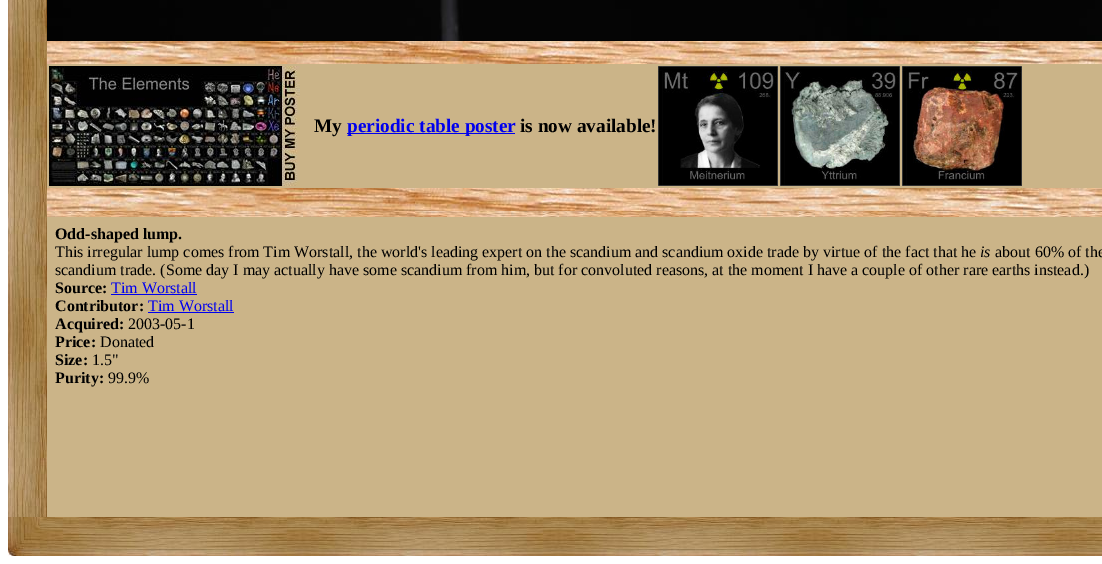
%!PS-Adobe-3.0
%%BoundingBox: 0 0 1102 564
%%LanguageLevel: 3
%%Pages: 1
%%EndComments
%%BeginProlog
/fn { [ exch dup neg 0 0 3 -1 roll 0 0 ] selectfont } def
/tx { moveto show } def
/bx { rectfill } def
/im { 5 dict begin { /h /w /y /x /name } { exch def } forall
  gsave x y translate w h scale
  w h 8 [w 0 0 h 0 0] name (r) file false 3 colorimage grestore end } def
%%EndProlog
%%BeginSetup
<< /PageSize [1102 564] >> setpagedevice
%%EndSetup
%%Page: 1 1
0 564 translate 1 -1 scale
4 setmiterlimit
1 setgray
0 0 1102 564 bx
(image0.raw) 8 0 39 517 im
0.796 0.706 0.533 setrgbcolor
47 64 1055 453 bx
(image1.raw) 47 0 800 41 im
(image2.raw) 847 0 255 41 im
(image3.raw) 47 41 1055 23 im
(image4.raw) 49 66 251 120 im
/LiberationSerif-Bold 19.25 fn
0 setgray
(My) 314 132 tx
0 0 0.933 setrgbcolor
347 133 168 1 bx
(periodic table poster) 347 132 tx
0 setgray
(is now available!) 520 132 tx
(image5.raw) 658 66 120 120 im
(image6.raw) 780 66 120 120 im
(image7.raw) 902 66 120 120 im
(image3.raw) 47 188 1055 23 im
(image8.raw) 47 211 1055 6 im
/LiberationSerif-Bold 16 fn
(Odd-shaped lump.) 55 239 tx
/LiberationSerif-Regular 16 fn
(This irregular lump comes from Tim Worstall, the world's leading expert on the scandium and scandium oxide trade by virtue of the fact that he) 55 257 tx
/LiberationSerif-Italic 16 fn
(is) 980 257 tx
/LiberationSerif-Regular 16 fn
(about 60% of the) 995 257 tx
(scandium trade. \(Some day I may actually have some scandium from him, but for convoluted reasons, at the moment I have a couple of other rare earths instead.\)) 55 275 tx
/LiberationSerif-Bold 16 fn
(Source:) 55 293 tx
/LiberationSerif-Regular 16 fn
0 0 0.933 setrgbcolor
(Tim Worstall) 111 293 tx
111 294 86 1 bx
/LiberationSerif-Bold 16 fn
0 setgray
(Contributor:) 55 311 tx
/LiberationSerif-Regular 16 fn
0 0 0.933 setrgbcolor
(Tim Worstall) 148 311 tx
148 312 86 1 bx
/LiberationSerif-Bold 16 fn
0 setgray
(Acquired:) 55 329 tx
/LiberationSerif-Regular 16 fn
(2003-05-1) 128 329 tx
/LiberationSerif-Bold 16 fn
(Price:) 55 347 tx
/LiberationSerif-Regular 16 fn
(Donated) 100 347 tx
/LiberationSerif-Bold 16 fn
(Size:) 55 365 tx
/LiberationSerif-Regular 16 fn
(1.5") 92 365 tx
/LiberationSerif-Bold 16 fn
(Purity:) 55 383 tx
/LiberationSerif-Regular 16 fn
(99.9%) 108 383 tx
(image9.raw) 8 517 39 39 im
(image10.raw) 47 517 1055 39 im
showpage
%%EOF
